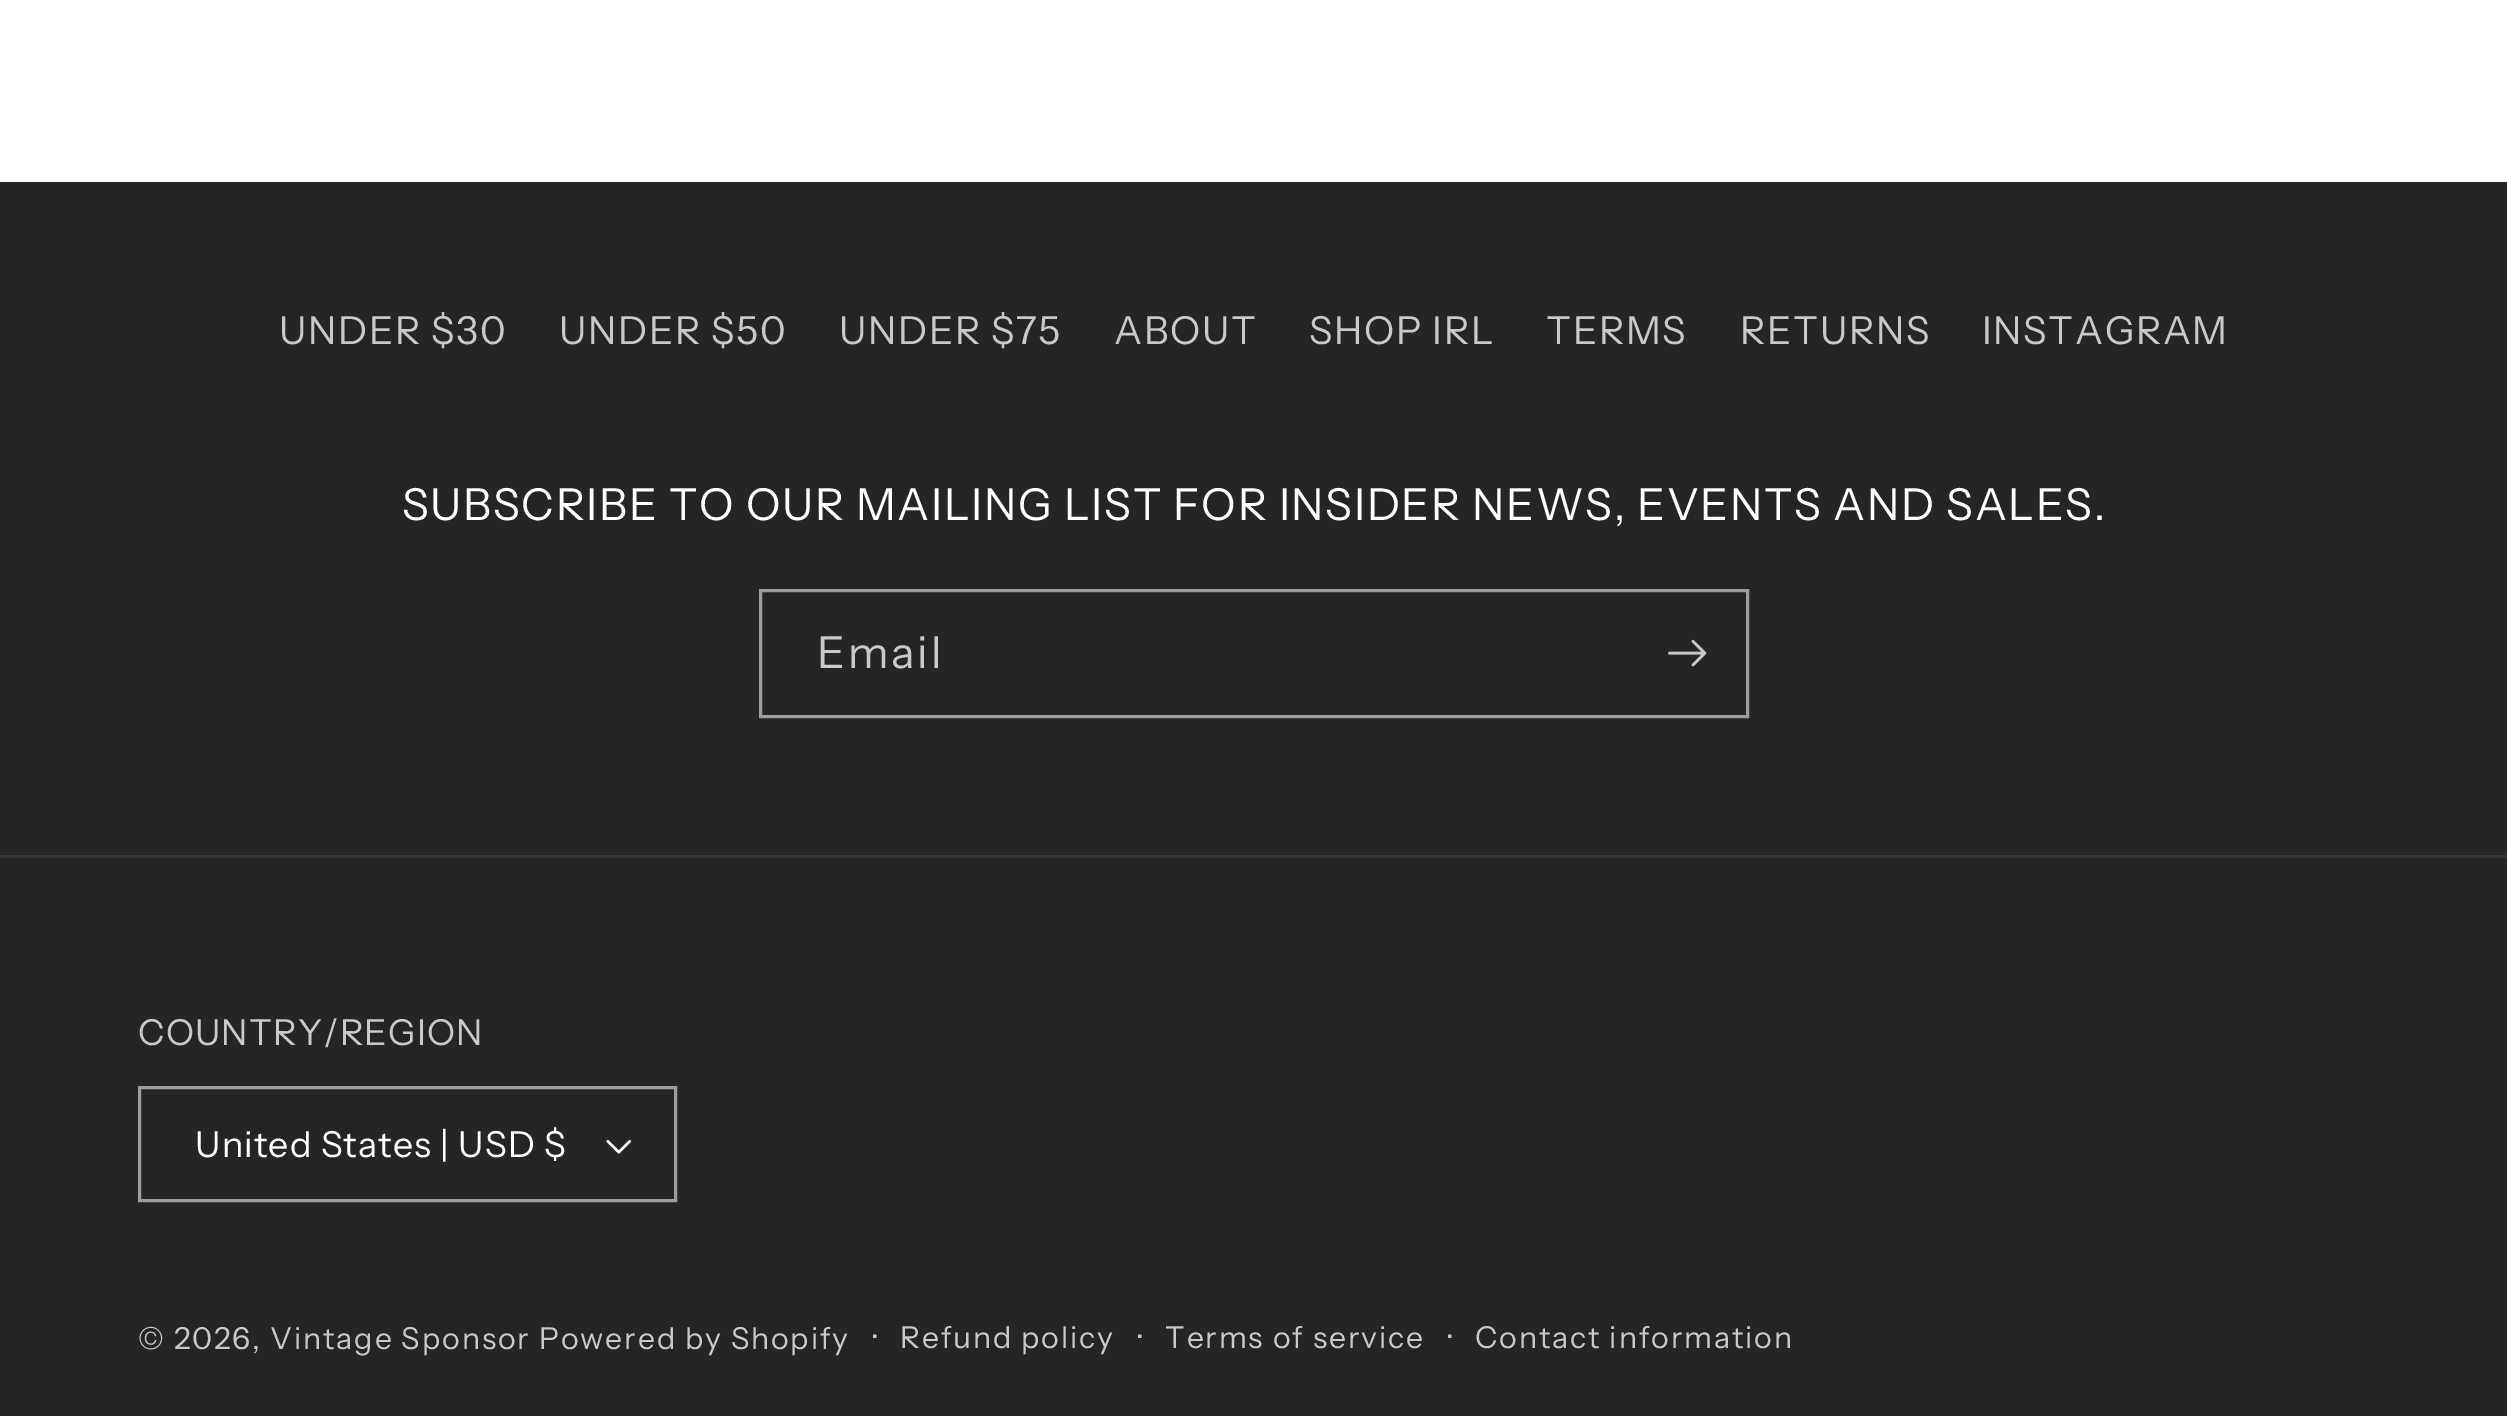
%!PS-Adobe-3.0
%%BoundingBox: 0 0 2507 1416
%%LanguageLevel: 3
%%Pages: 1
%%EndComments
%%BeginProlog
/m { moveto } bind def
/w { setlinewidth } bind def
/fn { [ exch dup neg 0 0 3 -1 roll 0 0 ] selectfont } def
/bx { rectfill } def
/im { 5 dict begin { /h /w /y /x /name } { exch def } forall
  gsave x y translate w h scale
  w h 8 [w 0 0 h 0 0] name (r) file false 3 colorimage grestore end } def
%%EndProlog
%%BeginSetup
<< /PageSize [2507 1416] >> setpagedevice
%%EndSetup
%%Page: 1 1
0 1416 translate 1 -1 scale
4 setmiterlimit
1 setgray
0 0 2507 1416 bx
0.145 setgray
0 182 2507 1234 bx
/InstrumentSans-Regular 38.5 fn
0.788 setgray
279 344 m 1.65 0 (UNDER $30) ashow
559 344 m 1.65 0 (UNDER $50) ashow
839 344 m 1.65 0 (UNDER $75) ashow
1114 344 m 1.65 0 (ABOUT) ashow
1309 344 m 1.65 0 (SHOP IRL) ashow
1546 344 m 1.65 0 (TERMS) ashow
1740 344 m 1.65 0 (RETURNS) ashow
1982 344 m 1.65 0 (INSTAGRAM) ashow
/InstrumentSans-Regular 44 fn
1 setgray
402 520 m 1.65 0 (SUBSCRIBE TO OUR MAILING LIST FOR INSIDER NEWS, EVENTS AND SALES.) ashow
0.616 setgray
3 w
760.5 590.5 987 126 rectstroke
0.788 setgray
817 668 m 2.75 0 (Email) ashow
(image0.raw) 1668 639 39 28 im
0.212 setgray
0 855 2507 3 bx
/InstrumentSans-Regular 35.75 fn
0.788 setgray
138 1045 m 1.1 0 (COUNTRY/REGION) ashow
(image1.raw) 606 1139 26 15 im
0.616 setgray
139.5 1087.5 536 113 rectstroke
1 setgray
195 1157 m 1.1 0 (United States | USD $) ashow
/InstrumentSans-Regular 30.25 fn
0.788 setgray
138 1349 m 1.9 0 (© 2026, Vintage Sponsor) ashow
539 1349 m 1.9 0 (Powered by Shopify) ashow
/InstrumentSans-Regular 33 fn
873 1349 m 1.9 0 (·) ashow
/InstrumentSans-Regular 30.25 fn
900 1348 m 1.9 0 (Refund policy) ashow
/InstrumentSans-Regular 33 fn
1138 1349 m 1.9 0 (·) ashow
/InstrumentSans-Regular 30.25 fn
1165 1348 m 1.9 0 (Terms of service) ashow
/InstrumentSans-Regular 33 fn
1448 1349 m 1.9 0 (·) ashow
/InstrumentSans-Regular 30.25 fn
1475 1348 m 1.9 0 (Contact information) ashow
showpage
%%EOF
